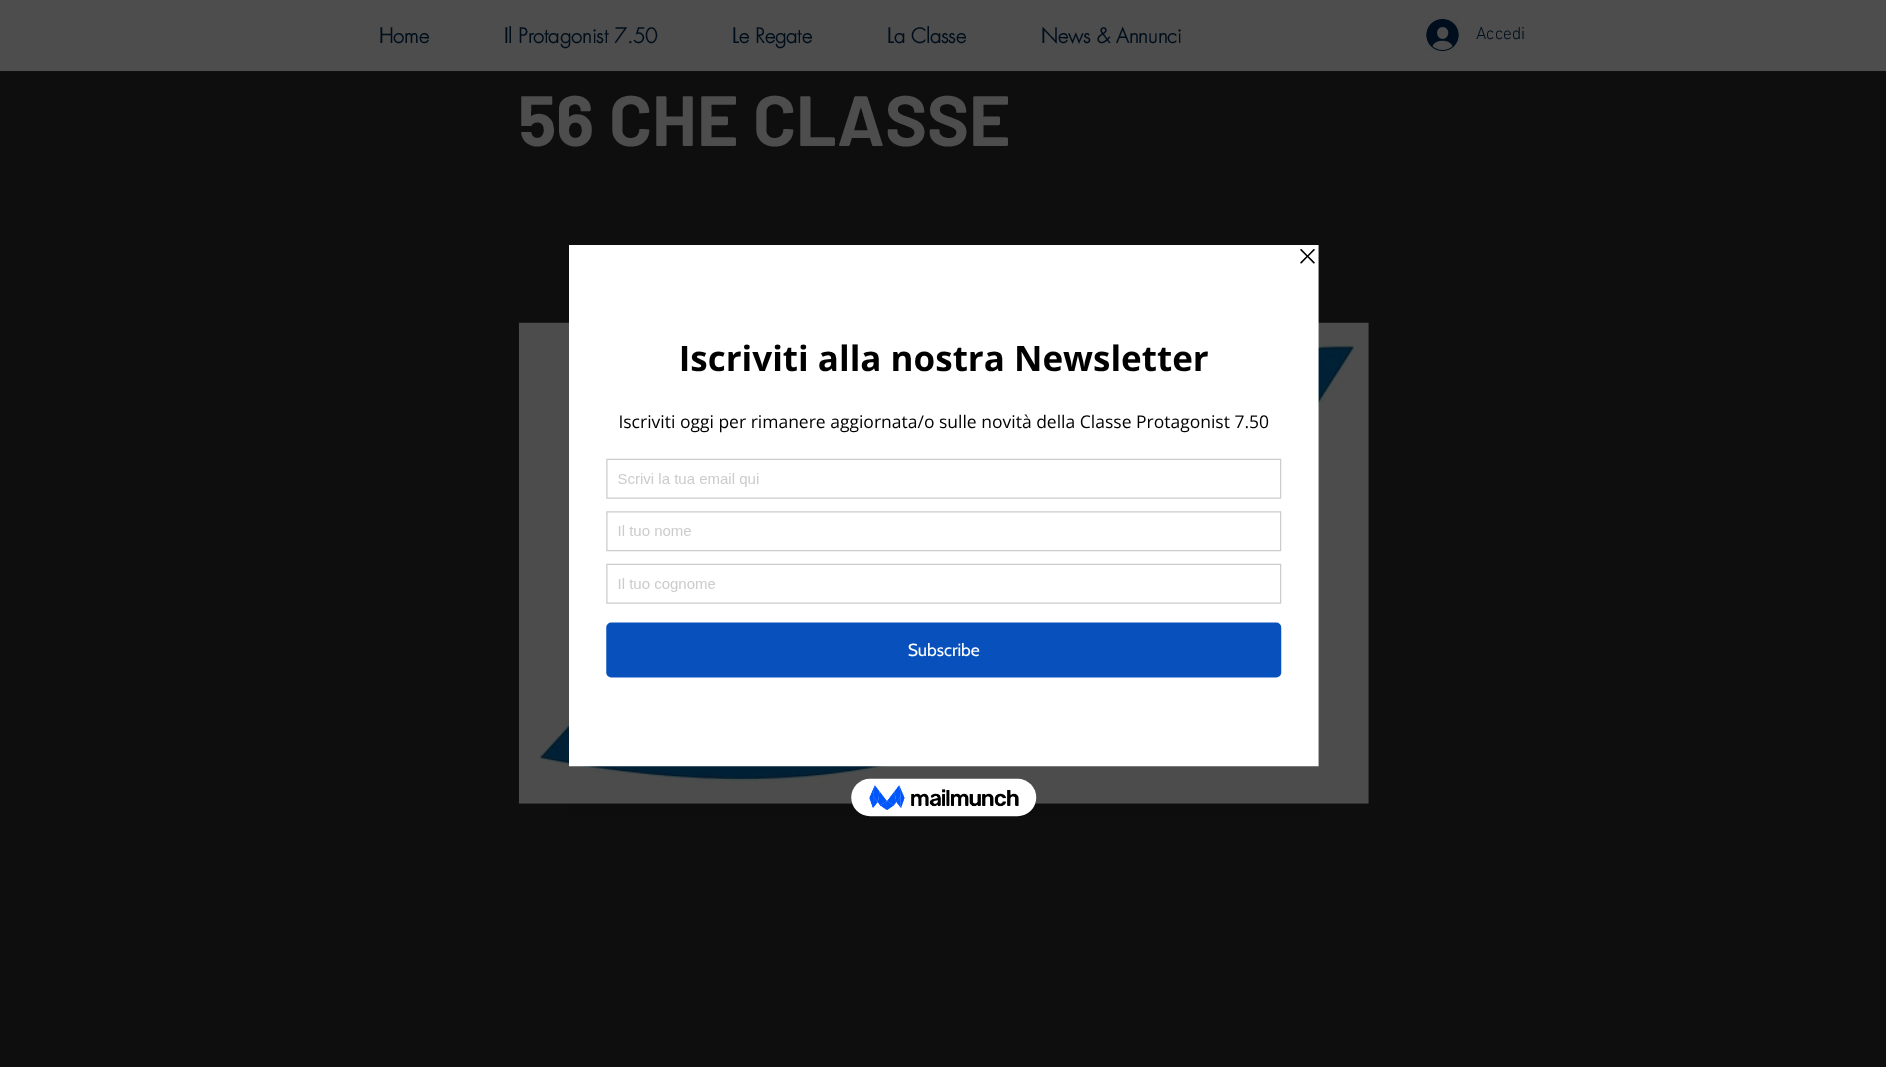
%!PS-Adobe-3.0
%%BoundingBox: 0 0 1886 1067
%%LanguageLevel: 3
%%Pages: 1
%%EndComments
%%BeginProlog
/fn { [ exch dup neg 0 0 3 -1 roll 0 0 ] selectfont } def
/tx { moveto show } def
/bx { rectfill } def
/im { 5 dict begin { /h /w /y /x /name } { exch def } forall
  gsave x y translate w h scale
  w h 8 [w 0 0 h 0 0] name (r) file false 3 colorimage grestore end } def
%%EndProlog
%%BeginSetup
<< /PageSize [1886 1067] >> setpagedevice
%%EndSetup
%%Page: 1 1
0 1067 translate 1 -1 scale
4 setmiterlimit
0.055 setgray
0 0 1886 1067 bx
0.302 setgray
0 0 1886 71 bx
0.067 setgray
0 71 1886 1 bx
/futura-Bold 20 fn
0 0.055 0.11 setrgbcolor
(Home) 379 43 tx
(Il Protagonist 7.50) 504 43 tx
(Le Regate) 732 43 tx
(La Classe) 887 43 tx
(News & Annunci) 1041 43 tx
(image0.raw) 1426 19 33 32 im
/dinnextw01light-Light 17.5 fn
(Accedi) 1476 39 tx
/Barlow-Bold 71.25 fn
0.302 setgray
(56 CHE CLASSE) 518 146 tx
(image1.raw) 518 322 851 482 im
(image2.raw) 569 245 750 572 im
showpage
%%EOF
